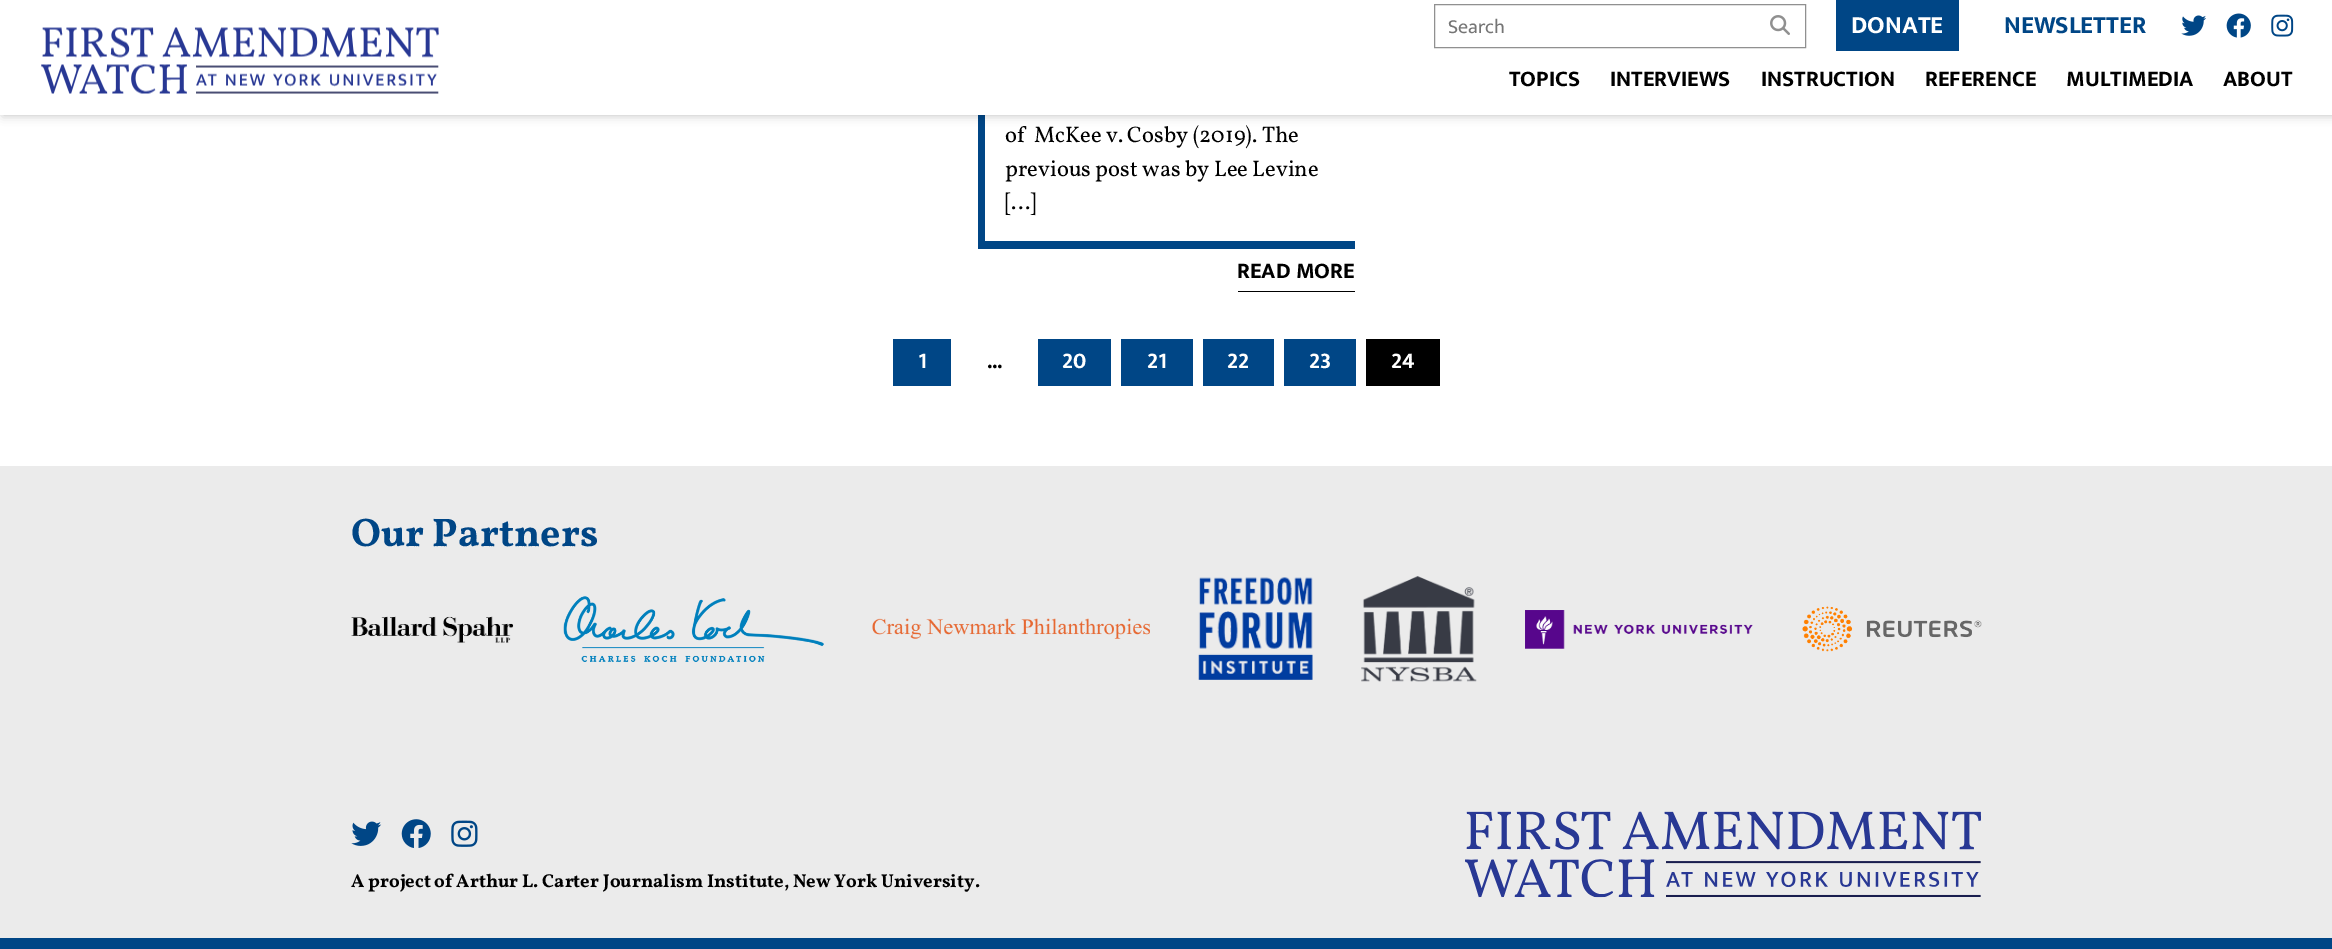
%!PS-Adobe-3.0
%%BoundingBox: 0 0 2332 949
%%LanguageLevel: 3
%%Pages: 1
%%EndComments
%%BeginProlog
/fn { [ exch dup neg 0 0 3 -1 roll 0 0 ] selectfont } def
/tx { moveto show } def
/bx { rectfill } def
/al { dup .setfillconstantalpha .setstrokeconstantalpha } def
/rr { 5 dict begin { /r /h /w /y /x } { exch def } forall
  x r add y moveto x w add y 2 copy h add r arct x w add y h add x 1 index r arct
  x y h add x y r arct x y 2 copy exch w add exch r arct closepath end } def
/sh { 12 dict begin { /a /b /q /h /w /y /x } { exch def } forall gsave /was 0 def
  9 -2 -9 { dup b mul 4 div /e exch def 1 sub .425 mul 2.718 exch exp 1 add a .99 .min exch div /now exch def
    1 1 now sub 1 was sub div sub al /was now def
    w h .min e 2 mul add 0 gt { x e sub y e sub w e 2 mul add h e 2 mul add
      q e add b .6 mul add w h .min 2 div e add .min 0 .max rr fill } if } for grestore end } def
/im { 5 dict begin { /h /w /y /x /name } { exch def } forall
  gsave x y translate w h scale
  w h 8 [w 0 0 h 0 0] name (r) file false 3 colorimage grestore end } def
%%EndProlog
%%BeginSetup
<< /PageSize [2332 949] /PageUsesTransparency true >> setpagedevice
%%EndSetup
%%Page: 1 1
0 .pushpdf14devicefilter
0 949 translate 1 -1 scale
4 setmiterlimit
1 setgray
0 0 2332 949 bx
0 0.275 0.525 setrgbcolor
978 241 377 8 bx
978 115 7 134 bx
0 setgray
3 0 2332 115 0 5 0.25 sh
1 setgray
0 0 2332 115 bx
(image0.raw) 41 27 398 67 im
0.565 setgray
1434.5 4.5 371 43 rectstroke
/Mukta-Regular 20 fn
0.459 setgray
(Search) 1448 33 tx
(image1.raw) 1770 15 20 20 im
0 0.275 0.525 setrgbcolor
1836 0 123 51 bx
/Mukta-Bold 25 fn
1 setgray
(DONATE) 1851 33 tx
0 0.275 0.525 setrgbcolor
(NEWSLETTER) 2004 33 tx
(image2.raw) 2181 15 25 21 im
(image3.raw) 2226 13 25 25 im
(image4.raw) 2271 14 23 23 im
/Mukta-Bold 22.5 fn
0 setgray
(TOPICS) 1509 86 tx
(INTERVIEWS) 1610 86 tx
(INSTRUCTION) 1761 86 tx
(REFERENCE) 1925 86 tx
(MULTIMEDIA) 2066 86 tx
(ABOUT) 2223 86 tx
/Vollkorn-Regular 22.5 fn
(of  McKee v. Cosby \(2019\). The) 1005 142 tx
(previous post was by Lee Levine) 1005 176 tx
([…]) 1005 209 tx
/Mukta-Bold 22.5 fn
(READ MORE) 1237 278 tx
1238 291 117 1 bx
0 0.275 0.525 setrgbcolor
893 339 58 47 bx
1 setgray
(1) 918 368 tx
0 setgray
(...) 987 368 tx
0 0.275 0.525 setrgbcolor
1038 339 73 47 bx
1 setgray
(20) 1062 368 tx
0 0.275 0.525 setrgbcolor
1121 339 72 47 bx
1 setgray
(21) 1147 368 tx
0 0.275 0.525 setrgbcolor
1203 339 71 47 bx
1 setgray
(22) 1227 368 tx
0 0.275 0.525 setrgbcolor
1284 339 72 47 bx
1 setgray
(23) 1309 368 tx
0 setgray
1366 339 74 47 bx
1 setgray
(24) 1391 368 tx
0.922 setgray
0 466 2332 472 bx
0 0.275 0.525 setrgbcolor
0 938 2332 11 bx
/Vollkorn-Bold 40 fn
(Our Partners) 351 546 tx
(image5.raw) 351 616 163 27 im
(image6.raw) 563 596 261 66 im
(image7.raw) 872 618 278 21 im
(image8.raw) 1198 577 115 103 im
(image9.raw) 1361 576 116 106 im
(image10.raw) 1525 610 228 39 im
(image11.raw) 1802 606 180 46 im
(image12.raw) 351 821 31 25 im
(image13.raw) 401 819 30 29 im
(image14.raw) 451 820 27 27 im
/Vollkorn-Bold 18.75 fn
0 setgray
(A project of Arthur L. Carter Journalism Institute, New York University.) 351 887 tx
(image15.raw) 1465 811 516 87 im
.poppdf14devicefilter showpage
%%EOF
